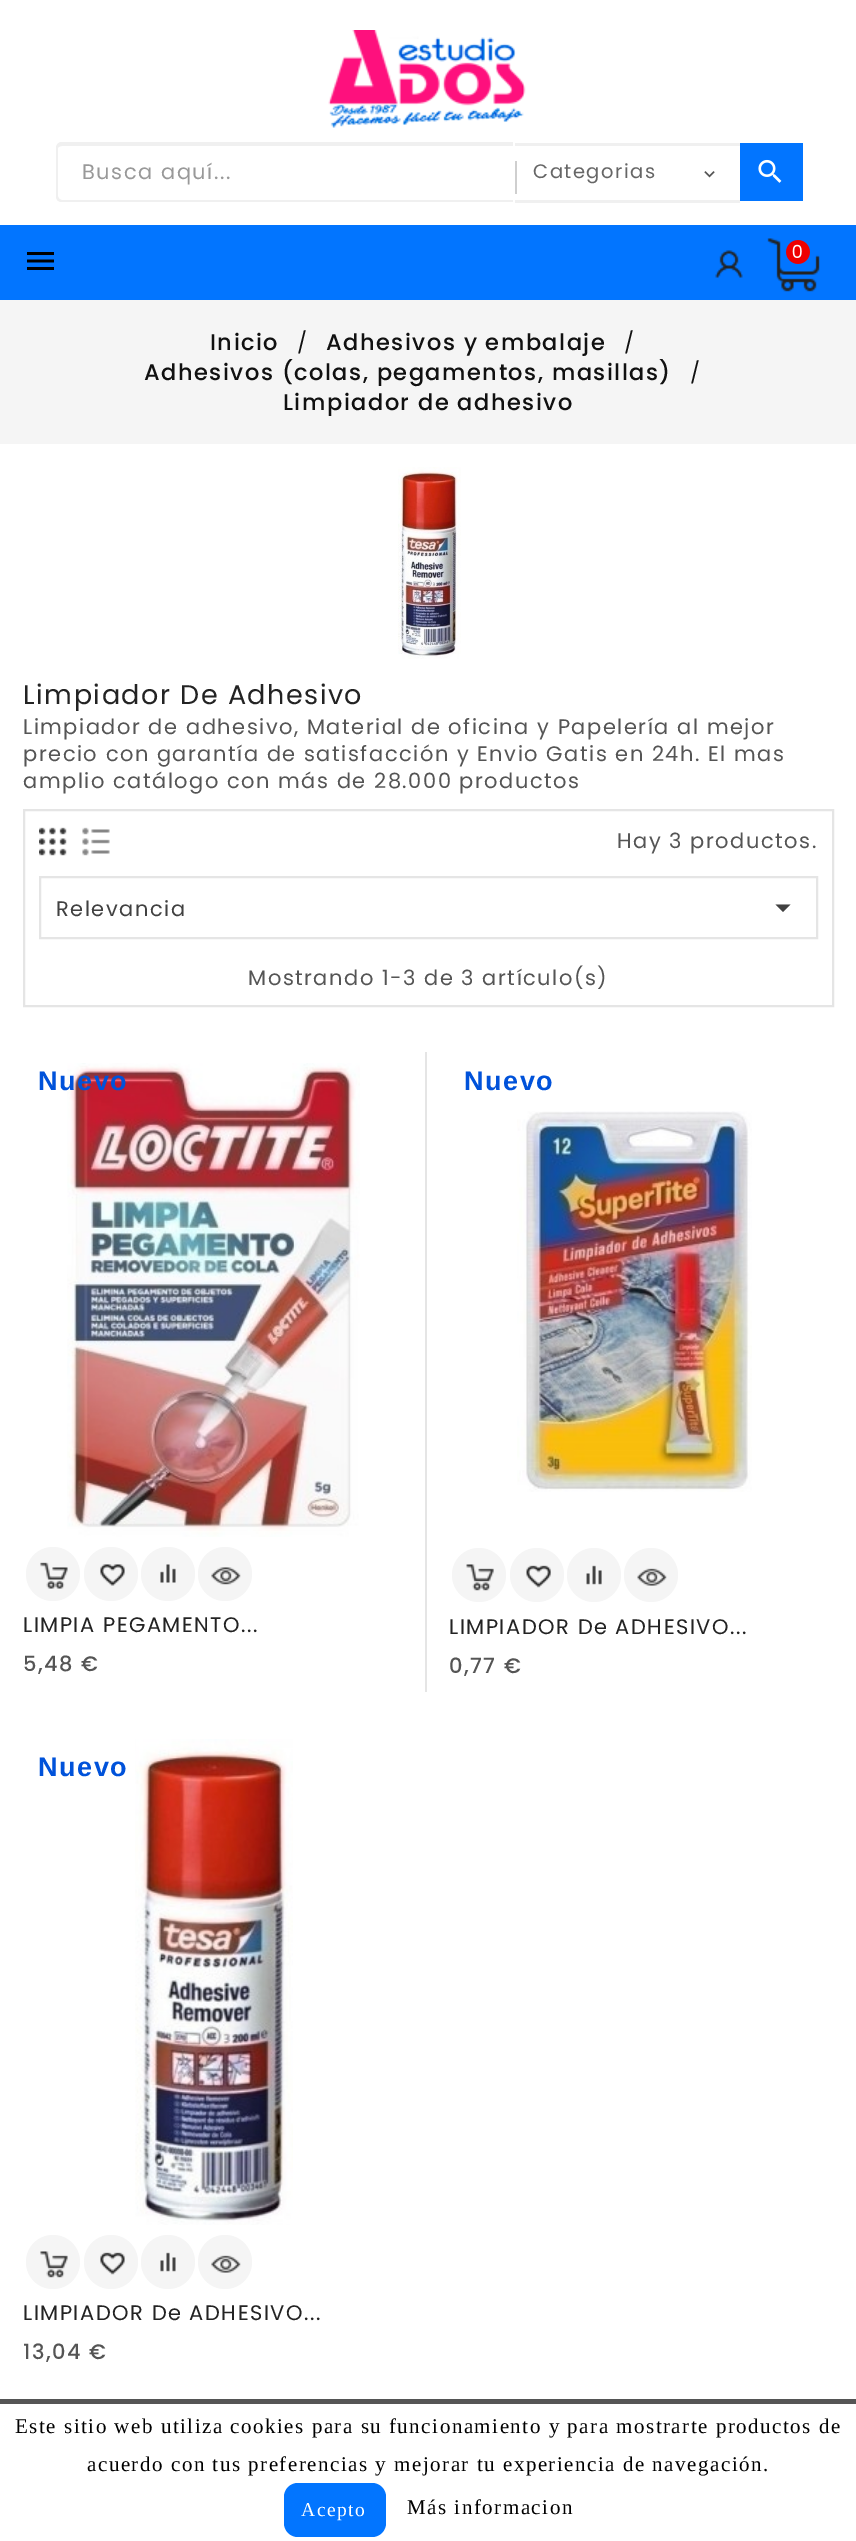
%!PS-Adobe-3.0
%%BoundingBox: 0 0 856 2541
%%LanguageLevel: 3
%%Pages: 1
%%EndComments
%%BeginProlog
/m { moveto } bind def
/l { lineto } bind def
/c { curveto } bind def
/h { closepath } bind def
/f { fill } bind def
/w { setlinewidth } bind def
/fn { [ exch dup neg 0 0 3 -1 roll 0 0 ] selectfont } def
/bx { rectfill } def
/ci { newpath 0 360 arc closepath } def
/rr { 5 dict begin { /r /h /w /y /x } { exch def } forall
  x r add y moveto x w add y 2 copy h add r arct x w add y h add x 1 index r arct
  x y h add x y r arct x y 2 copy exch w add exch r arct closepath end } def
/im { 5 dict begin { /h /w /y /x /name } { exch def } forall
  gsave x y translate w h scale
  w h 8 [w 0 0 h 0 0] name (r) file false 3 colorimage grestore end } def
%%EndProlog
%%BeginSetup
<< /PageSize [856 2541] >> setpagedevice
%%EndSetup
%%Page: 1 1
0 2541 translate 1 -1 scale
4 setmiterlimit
1 setgray
0 0 856 2541 bx
(image0.raw) 328 30 198 98 im
0.941 setgray
62 142 m 513 142 l 513 202 l 62 202 l 58 202 56 200 56 196 c 56 148 l 56 145 58 142 62 142 c h 62 146 m 513 146 l 513 200 l 62 200 l 60 200 58 198 58 196 c 58 148 l 58 147 60 146 62 146 c h eofill
/Poppins-Regular 21 fn
0.6 setgray
82 179 m 1.5 0 (Busca aquí...) ashow
0.941 setgray
515 143 225 3 bx
515 200 225 3 bx
0.812 setgray
515 161 2 33 bx
/Poppins-Regular 19.5 fn
0.4 setgray
533 178 m 1.5 0 (Categorias) ashow
(image1.raw) 704 171 11 7 im
0.008 0.459 1 setrgbcolor
740 143 63 58 bx
(image2.raw) 758 159 24 24 im
0 225 856 75 bx
(image3.raw) 27 252 27 18 im
(image4.raw) 715 250 28 28 im
0.933 0 0 setrgbcolor
798 252 12 ci f
/Poppins-Regular 18 fn
1 setgray
792 258 m 1.5 0 (0) ashow
(image5.raw) 767 238 53 54 im
0.961 setgray
0 300 856 144 bx
/Poppins-Medium 22.5 fn
0.067 setgray
210 350 m 1.5 0 (Inicio) ashow
/Poppins-Regular 21 fn
297 350 m 1.5 0 (/) ashow
/Poppins-Medium 22.5 fn
326 350 m 1.5 0 (Adhesivos y embalaje) ashow
/Poppins-Regular 21 fn
624 350 m 1.5 0 (/) ashow
/Poppins-Medium 22.5 fn
144 380 m 1.5 0 (Adhesivos \(colas, pegamentos, masillas\)) ashow
/Poppins-Regular 21 fn
690 380 m 1.5 0 (/) ashow
/Poppins-Medium 22.5 fn
283 410 m 1.5 0 (Limpiador de adhesivo) ashow
(image6.raw) 398 467 63 192 im
/Poppins-Regular 27 fn
0.137 setgray
23 704 m 1.5 0 (Limpiador De Adhesivo) ashow
/Poppins-Regular 21 fn
0.333 setgray
23 734 m 1.5 0 (Limpiador de adhesivo, Material de oficina y Papelería al mejor) ashow
23 761 m 1.5 0 (precio con garantía de satisfacción y Envio Gatis en 24h. El mas) ashow
23 788 m 1.5 0 (amplio catálogo con más de 28.000 productos) ashow
0.898 setgray
2 w
24 810 809 196 rectstroke
(image7.raw) 39 827 28 29 im
(image8.raw) 82 827 28 29 im
0.333 setgray
617 848 m 1.5 0 (Hay 3 productos.) ashow
0.898 setgray
40 877 777 61 rectstroke
0.255 setgray
56 916 m 1.5 0 (Relevancia) ashow
775.5 904.5 m 790.5 904.5 l 783 912 l h f
0.333 setgray
248 985 m 1.5 0 (Mostrando 1-3 de 3 artículo\(s\)) ashow
0.898 setgray
425 1052 2 640 bx
(image9.raw) 67 1063 293 474 im
/LiberationSans-Bold 27 fn
0 0.322 0.855 setrgbcolor
38 1090 m 1.5 0 (Nuevo) ashow
0.961 setgray
53 1574 27 ci f
(image10.raw) 40 1562 28 27 im
111 1574 27 ci f
(image11.raw) 100 1564 25 22 im
168 1574 27 ci f
(image12.raw) 160 1564 16 19 im
225 1574 27 ci f
(image13.raw) 211 1567 30 18 im
/Poppins-Regular 21 fn
0.137 setgray
23 1632 m 1.5 0 (LIMPIA PEGAMENTO...) ashow
/Poppins-Medium 21 fn
0.333 setgray
23 1671 m 1.5 0 (5,48 €) ashow
/LiberationSans-Bold 27 fn
0 0.322 0.855 setrgbcolor
464 1090 m 1.5 0 (Nuevo) ashow
(image14.raw) 517 1111 235 381 im
0.961 setgray
479 1575 27 ci f
(image15.raw) 466 1564 28 27 im
537 1575 27 ci f
(image16.raw) 526 1565 25 23 im
594 1575 27 ci f
(image17.raw) 586 1565 16 20 im
651 1575 27 ci f
(image18.raw) 637 1568 30 18 im
/Poppins-Regular 21 fn
0.137 setgray
449 1634 m 1.5 0 (LIMPIADOR De ADHESIVO...) ashow
/Poppins-Medium 21 fn
0.333 setgray
449 1673 m 1.5 0 (0,77 €) ashow
/LiberationSans-Bold 27 fn
0 0.322 0.855 setrgbcolor
38 1776 m 1.5 0 (Nuevo) ashow
(image19.raw) 135 1739 158 486 im
0.961 setgray
53 2262 27 ci f
(image20.raw) 40 2251 28 27 im
111 2262 27 ci f
(image21.raw) 100 2252 25 23 im
168 2262 27 ci f
(image22.raw) 160 2252 16 20 im
225 2262 27 ci f
(image23.raw) 211 2255 30 18 im
/Poppins-Regular 21 fn
0.137 setgray
23 2320 m 1.5 0 (LIMPIADOR De ADHESIVO...) ashow
/Poppins-Medium 21 fn
0.333 setgray
23 2359 m 1.5 0 (13,04 €) ashow
0 2399 856 5 bx
/LiberationSerif-Regular 21 fn
0 setgray
15 2433 m 1.5 0 (Este sitio web utiliza cookies para su funcionamiento y para mostrarte productos de) ashow
87 2471 m 1.5 0 (acuerdo con tus preferencias y mejorar tu experiencia de navegación.) ashow
0.008 0.459 1 setrgbcolor
284 2483 102 54 14 rr f
/LiberationSerif-Regular 19.5 fn
1 setgray
301 2516 m 1.5 0 (Acepto) ashow
/LiberationSerif-Regular 21 fn
0 setgray
407 2514 m 1.5 0 (Más informacion) ashow
showpage
%%EOF
